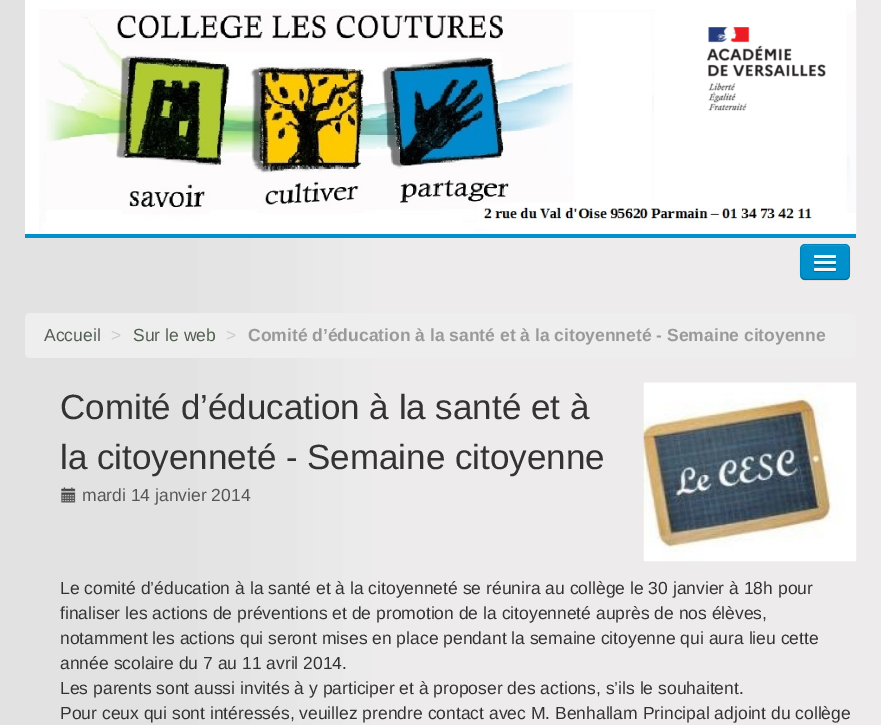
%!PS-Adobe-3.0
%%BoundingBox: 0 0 881 725
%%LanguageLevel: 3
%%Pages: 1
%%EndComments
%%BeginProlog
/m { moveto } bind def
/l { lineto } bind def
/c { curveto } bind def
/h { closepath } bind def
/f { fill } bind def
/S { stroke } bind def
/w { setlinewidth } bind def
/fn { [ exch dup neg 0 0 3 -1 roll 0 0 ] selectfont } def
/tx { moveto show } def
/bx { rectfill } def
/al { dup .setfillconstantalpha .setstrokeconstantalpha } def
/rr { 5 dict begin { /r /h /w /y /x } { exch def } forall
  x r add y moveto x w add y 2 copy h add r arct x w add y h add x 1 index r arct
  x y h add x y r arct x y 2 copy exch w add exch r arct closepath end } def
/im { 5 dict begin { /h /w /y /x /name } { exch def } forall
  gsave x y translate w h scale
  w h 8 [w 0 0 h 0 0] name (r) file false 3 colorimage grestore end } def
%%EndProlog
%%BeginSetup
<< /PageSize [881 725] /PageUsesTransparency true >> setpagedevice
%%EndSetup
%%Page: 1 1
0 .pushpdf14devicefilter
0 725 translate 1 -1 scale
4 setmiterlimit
0.827 setgray
0 0 881 725 bx
(image0.raw) 0 0 881 725 im
1 setgray
25 0 831 234 bx
0 0.569 0.8 setrgbcolor
25 234 831 4 bx
(image1.raw) 39 9 818 224 im
(image2.raw) 707 27 119 84 im
800 244 50 36 5 rr f
0.102 0.612 0.82 setrgbcolor
805 246 m 845 246 l 847 246 849 248 849 250 c 849 244 843 245 838 245 c 812 245 l 807 245 801 244 801 250 c 801 248 803 246 805 246 c h f
0.25 al
0 setgray
1.2 w
848 278 m 847.5 279 846 279.5 845 279.5 c 805 279.5 l 804 279.5 802.5 279 802 278 c S
0.1 al
802 278 m 799.5 275.5 800.5 265 800.5 262 c 800.5 253 l 800.5 250 800 245.5 804 244.5 c 846 244.5 l 850 245.5 849.5 250 849.5 253 c 849.5 262 l 849.5 265 850.5 275.5 848 278 c S
1 al
0 0.427 0.6 setrgbcolor
814 257 m 813.5 259.5 818 259 818.5 259 c 831.5 259 l 832 259 836.5 259.5 836 257 c 835 258 815 258 814 257 c h f
0.961 setgray
814 255 22 3 1.5 rr f
0 0.427 0.6 setrgbcolor
814.5 263.5 m 814 265 l 814.5 266.5 817.5 266 818.5 266 c 831.5 266 l 832.5 266 835.5 266.5 836 265 c 835.5 263.5 l h f
0.961 setgray
814 261 22 3 1.5 rr f
0 0.427 0.6 setrgbcolor
814 269.5 m 812.5 272.5 818 272 818.5 272 c 831.5 272 l 832 272 837.5 272.5 836 269.5 c 835 270 815 270 814 269.5 c h f
0.961 setgray
814 268 22 3 1.5 rr f
0.933 setgray
25 313 831 45 5 rr f
/LiberationSans-Regular 17.5 fn
0.318 0.369 0.318 setrgbcolor
(Accueil) 44 341 tx
0.8 setgray
(>) 111 341 tx
0.318 0.369 0.318 setrgbcolor
(Sur le web) 133 341 tx
0.8 setgray
(>) 226 341 tx
/LiberationSans-Bold 17.5 fn
0.6 setgray
(Comité d’éducation à la santé et à la citoyenneté - Semaine citoyenne) 248 341 tx
/LiberationSans-Regular 35 fn
0.2 setgray
(Comité d’éducation à la santé et à) 60 419 tx
(la citoyenneté - Semaine citoyenne) 60 469 tx
(image3.raw) 643 382 214 180 im
(image4.raw) 61 487 15 17 im
/LiberationSans-Regular 17.5 fn
0.337 setgray
(mardi 14 janvier 2014) 82 501 tx
0.2 setgray
(Le comité d’éducation à la santé et à la citoyenneté se réunira au collège le 30 janvier à 18h pour) 60 594 tx
(finaliser les actions de préventions et de promotion de la citoyenneté auprès de nos élèves,) 60 619 tx
(notamment les actions qui seront mises en place pendant la semaine citoyenne qui aura lieu cette) 60 644 tx
(année scolaire du 7 au 11 avril 2014.) 60 669 tx
(Les parents sont aussi invités à y participer et à proposer des actions, s’ils le souhaitent.) 60 694 tx
(Pour ceux qui sont intéressés, veuillez prendre contact avec M. Benhallam Principal adjoint du collège) 60 719 tx
.poppdf14devicefilter showpage
%%EOF
